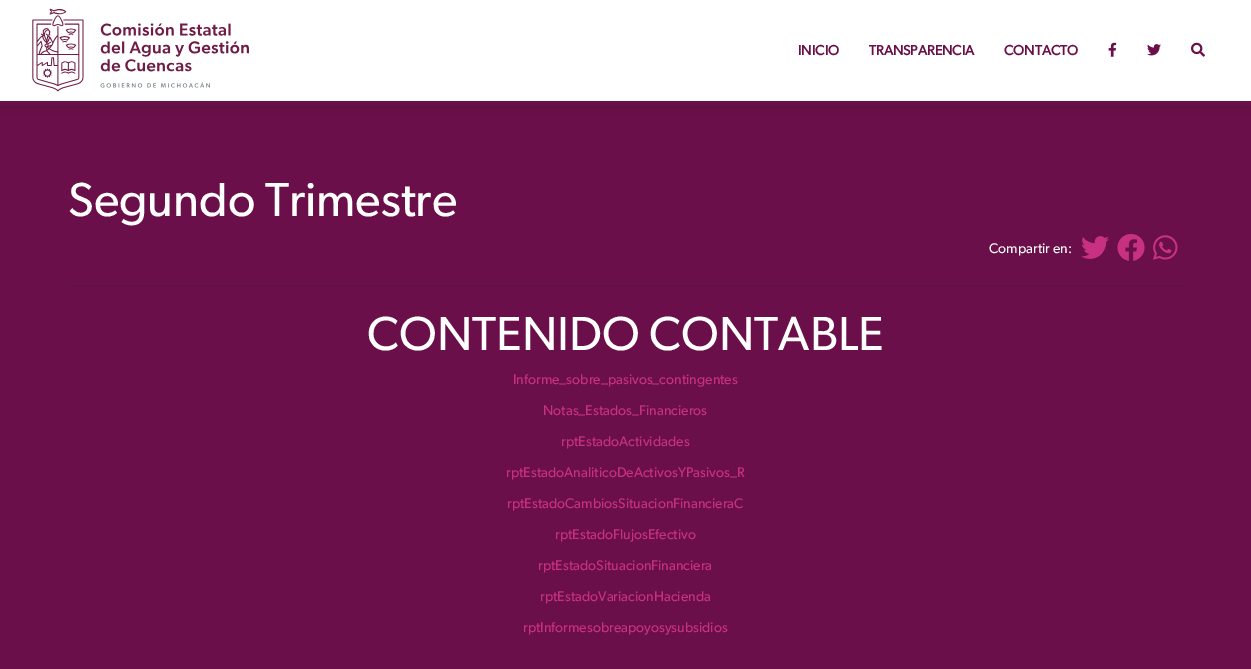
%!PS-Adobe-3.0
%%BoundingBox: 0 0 1251 669
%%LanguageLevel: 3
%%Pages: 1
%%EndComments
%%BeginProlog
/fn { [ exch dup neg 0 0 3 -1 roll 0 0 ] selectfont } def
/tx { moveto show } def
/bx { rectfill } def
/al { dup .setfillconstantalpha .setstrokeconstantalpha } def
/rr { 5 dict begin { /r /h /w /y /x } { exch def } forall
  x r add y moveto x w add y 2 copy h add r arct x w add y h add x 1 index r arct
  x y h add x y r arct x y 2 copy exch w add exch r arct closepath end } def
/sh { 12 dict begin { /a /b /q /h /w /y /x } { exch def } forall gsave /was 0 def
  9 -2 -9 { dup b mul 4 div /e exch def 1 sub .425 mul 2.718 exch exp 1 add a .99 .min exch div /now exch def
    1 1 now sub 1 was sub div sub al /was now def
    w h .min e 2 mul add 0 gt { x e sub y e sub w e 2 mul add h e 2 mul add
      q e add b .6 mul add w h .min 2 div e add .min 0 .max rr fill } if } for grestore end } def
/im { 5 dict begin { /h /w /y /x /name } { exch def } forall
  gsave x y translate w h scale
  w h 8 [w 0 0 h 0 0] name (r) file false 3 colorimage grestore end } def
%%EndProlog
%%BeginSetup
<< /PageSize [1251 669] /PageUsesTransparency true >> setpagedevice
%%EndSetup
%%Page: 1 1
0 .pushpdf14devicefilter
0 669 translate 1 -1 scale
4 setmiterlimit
0.416 0.059 0.286 setrgbcolor
0 0 1251 669 bx
0 setgray
0 3 1251 106 0 5 0.1 sh
1 setgray
0 0 1251 101 bx
0.416 0.059 0.286 setrgbcolor
0 101 1251 5 bx
(image0.raw) 32 8 217 84 im
/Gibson-Bold 14 fn
(INICIO) 798 55 tx
(TRANSPARENCIA) 869 55 tx
(CONTACTO) 1004 55 tx
(image1.raw) 1108 42 9 15 im
(image2.raw) 1147 44 14 12 im
(image3.raw) 1191 42 14 15 im
/Gibson-Regular 48 fn
1 setgray
(Segundo Trimestre) 68 216 tx
/Gibson-Regular 14 fn
(Compartir en:) 989 253 tx
(image4.raw) 1081 236 28 23 im
(image5.raw) 1117 234 28 27 im
(image6.raw) 1153 235 25 25 im
0.345 0.082 0.255 setrgbcolor
68 285 1116 1 bx
/Gibson-Regular 48 fn
1 setgray
(CONTENIDO CONTABLE) 367 350 tx
/Gibson-Regular 14 fn
0.784 0.192 0.51 setrgbcolor
(Informe_sobre_pasivos_contingentes) 513 384 tx
(Notas_Estados_Financieros) 543 415 tx
(rptEstadoActividades) 561 446 tx
(rptEstadoAnaliticoDeActivosYPasivos_R) 506 477 tx
(rptEstadoCambiosSituacionFinancieraC) 507 508 tx
(rptEstadoFlujosEfectivo) 555 539 tx
(rptEstadoSituacionFinanciera) 538 570 tx
(rptEstadoVariacionHacienda) 540 601 tx
(rptInformesobreapoyosysubsidios) 523 632 tx
.poppdf14devicefilter showpage
%%EOF
